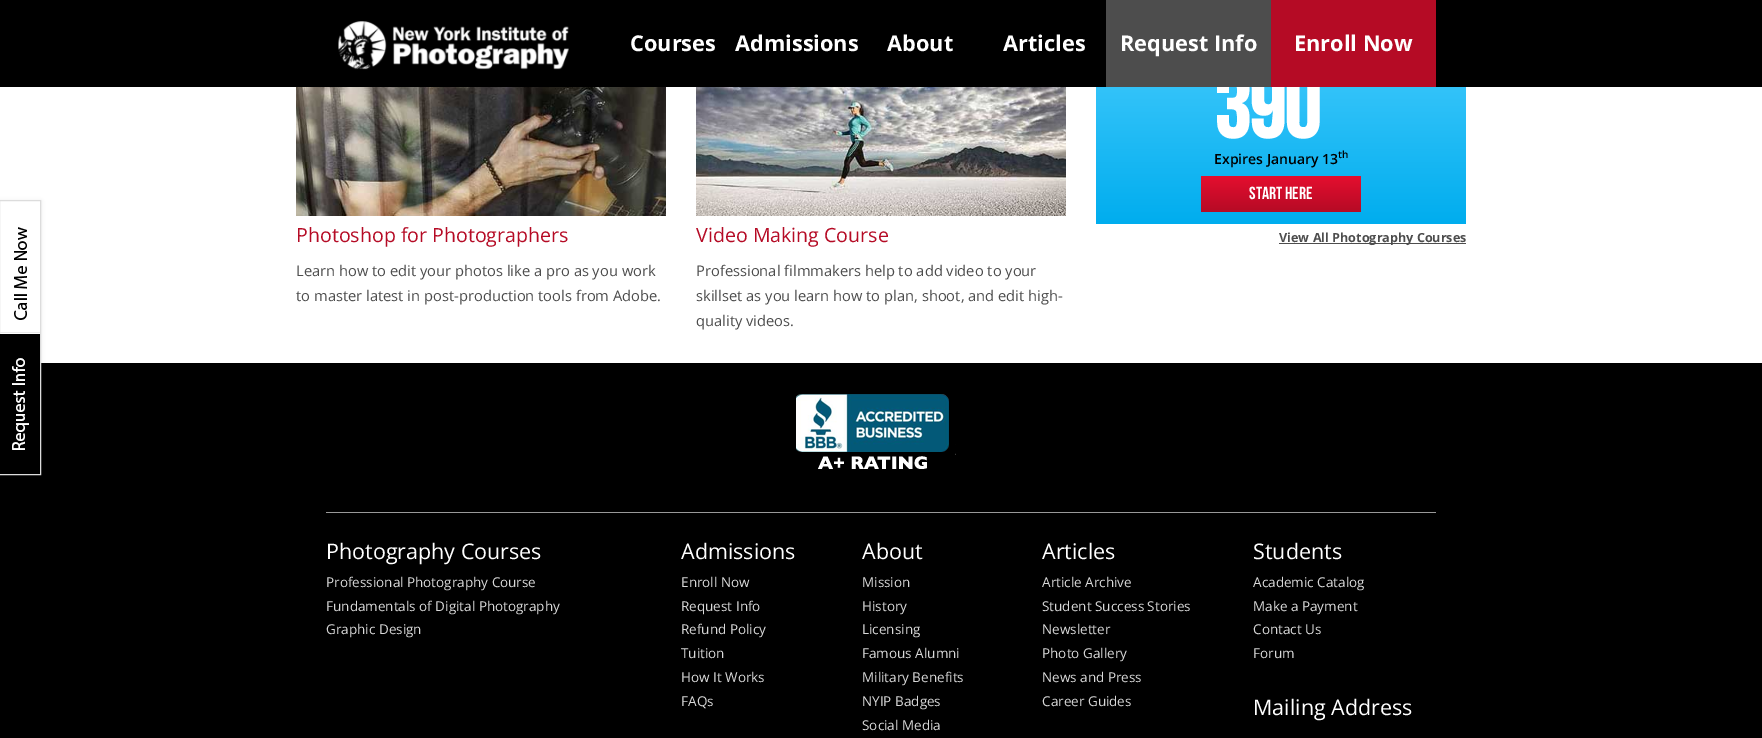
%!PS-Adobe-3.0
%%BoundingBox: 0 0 1762 738
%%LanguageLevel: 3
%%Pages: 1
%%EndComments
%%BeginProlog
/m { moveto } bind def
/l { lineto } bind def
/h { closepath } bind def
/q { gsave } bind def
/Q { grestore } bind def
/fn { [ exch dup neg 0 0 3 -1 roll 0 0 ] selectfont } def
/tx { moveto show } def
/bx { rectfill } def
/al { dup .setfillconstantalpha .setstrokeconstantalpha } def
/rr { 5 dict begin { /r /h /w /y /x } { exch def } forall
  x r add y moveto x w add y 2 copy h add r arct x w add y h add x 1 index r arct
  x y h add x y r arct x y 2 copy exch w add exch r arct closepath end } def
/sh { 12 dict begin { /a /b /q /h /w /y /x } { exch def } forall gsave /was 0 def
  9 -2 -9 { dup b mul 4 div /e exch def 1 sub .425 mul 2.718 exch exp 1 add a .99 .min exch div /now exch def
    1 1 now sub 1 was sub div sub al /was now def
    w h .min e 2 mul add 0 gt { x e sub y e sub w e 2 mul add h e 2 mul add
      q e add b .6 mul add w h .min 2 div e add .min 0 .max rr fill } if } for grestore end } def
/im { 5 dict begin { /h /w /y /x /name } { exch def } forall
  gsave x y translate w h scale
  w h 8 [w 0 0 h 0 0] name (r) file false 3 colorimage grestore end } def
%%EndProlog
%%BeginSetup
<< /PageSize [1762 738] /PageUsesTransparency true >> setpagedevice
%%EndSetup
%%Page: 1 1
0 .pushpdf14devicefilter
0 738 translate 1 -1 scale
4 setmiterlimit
1 setgray
0 0 1762 738 bx
q 1096 87 m 1466 87 l 1466 224 l 1096 224 l h clip newpath
<< /ShadingType 2 /ColorSpace /DeviceRGB /Coords [1281 8 1281 224] /Extend [true true] /Function << /FunctionType 2 /Domain [0 1] /C0 [0.314 0.812 1] /C1 [0 0.678 0.933] /N 1 >> >> shfill Q
/BebasNeue-Bold 91 fn
1214 138 m -1 0 (390) ashow
0 setgray
0 0 1762 87 bx
(image0.raw) 338 21 231 49 im
/OpenSans-Bold 21.75 fn
1 setgray
(Courses) 630 51 tx
(Admissions) 735 51 tx
(About) 887 51 tx
(Articles) 1003 51 tx
0.302 setgray
1106 0 165 87 bx
1 setgray
(Request Info) 1120 51 tx
0.71 0.043 0.145 setrgbcolor
1271 0 165 87 bx
1 setgray
(Enroll Now) 1294 51 tx
0 setgray
0 363 1762 375 bx
-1 201 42 275 0 2 0.1 sh
1 setgray
0 201 40 133 bx
0.863 setgray
-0.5 200.5 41 274 rectstroke
(image1.raw) 14 227 13 93 im
0.918 setgray
0 332 40 1 bx
(image2.raw) 0 334 40 140 im
/OpenSans-SemiBold 14 fn
0 setgray
(Expires January 13) 1214 164 tx
/OpenSans-SemiBold 10 fn
(th) 1338 158 tx
q 1201 176 m 1361 176 l 1361 212 l 1201 212 l h clip newpath
<< /ShadingType 2 /ColorSpace /DeviceRGB /Coords [1281 176 1281 212] /Extend [true true] /Function << /FunctionType 2 /Domain [0 1] /C0 [0.898 0.055 0.184] /C1 [0.71 0.043 0.145] /N 1 >> >> shfill Q
/BebasNeue-Regular 17.5 fn
1 setgray
(Start Here) 1249 199 tx
0.302 setgray
1279 243 187 1 bx
/OpenSans-Bold 12.6 fn
(View All Photography Courses) 1279 242 tx
(image3.raw) 296 87 370 129 im
/OpenSans-Regular 19.6 fn
0.71 0.043 0.145 setrgbcolor
(Photoshop for Photographers) 296 242 tx
/OpenSans-Regular 14.7 fn
0.302 setgray
(Learn how to edit your photos like a pro as you work) 296 276 tx
(to master latest in post-production tools from Adobe.) 296 301 tx
(image4.raw) 696 87 370 129 im
/OpenSans-Regular 19.6 fn
0.71 0.043 0.145 setrgbcolor
(Video Making Course) 696 242 tx
/OpenSans-Regular 14.7 fn
0.302 setgray
(Professional filmmakers help to add video to your) 696 276 tx
(skillset as you learn how to plan, shoot, and edit high-) 696 301 tx
(quality videos.) 696 326 tx
(image5.raw) 796 394 160 75 im
0.6 setgray
326 512 1110 1 bx
/OpenSans-Regular 21.5 fn
1 setgray
(Photography Courses) 326 559 tx
/OpenSans-Regular 13.5 fn
0.851 setgray
(Professional Photography Course) 326 587 tx
(Fundamentals of Digital Photography) 326 611 tx
(Graphic Design) 326 634 tx
/OpenSans-Regular 21.5 fn
1 setgray
(Admissions) 681 559 tx
/OpenSans-Regular 13.5 fn
0.851 setgray
(Enroll Now) 681 587 tx
(Request Info) 681 611 tx
(Refund Policy) 681 634 tx
(Tuition) 681 658 tx
(How It Works) 681 682 tx
(FAQs) 681 706 tx
/OpenSans-Regular 21.5 fn
1 setgray
(About) 862 559 tx
/OpenSans-Regular 13.5 fn
0.851 setgray
(Mission) 862 587 tx
(History) 862 611 tx
(Licensing) 862 634 tx
(Famous Alumni) 862 658 tx
(Military Benefits) 862 682 tx
(NYIP Badges) 862 706 tx
(Social Media) 862 730 tx
/OpenSans-Regular 21.5 fn
1 setgray
(Articles) 1042 559 tx
/OpenSans-Regular 13.5 fn
0.851 setgray
(Article Archive) 1042 587 tx
(Student Success Stories) 1042 611 tx
(Newsletter) 1042 634 tx
(Photo Gallery) 1042 658 tx
(News and Press) 1042 682 tx
(Career Guides) 1042 706 tx
/OpenSans-Regular 21.5 fn
1 setgray
(Students) 1253 559 tx
/OpenSans-Regular 13.5 fn
0.851 setgray
(Academic Catalog) 1253 587 tx
(Make a Payment) 1253 611 tx
(Contact Us) 1253 634 tx
(Forum) 1253 658 tx
/OpenSans-Regular 21.5 fn
1 setgray
(Mailing Address) 1253 715 tx
.poppdf14devicefilter showpage
%%EOF
